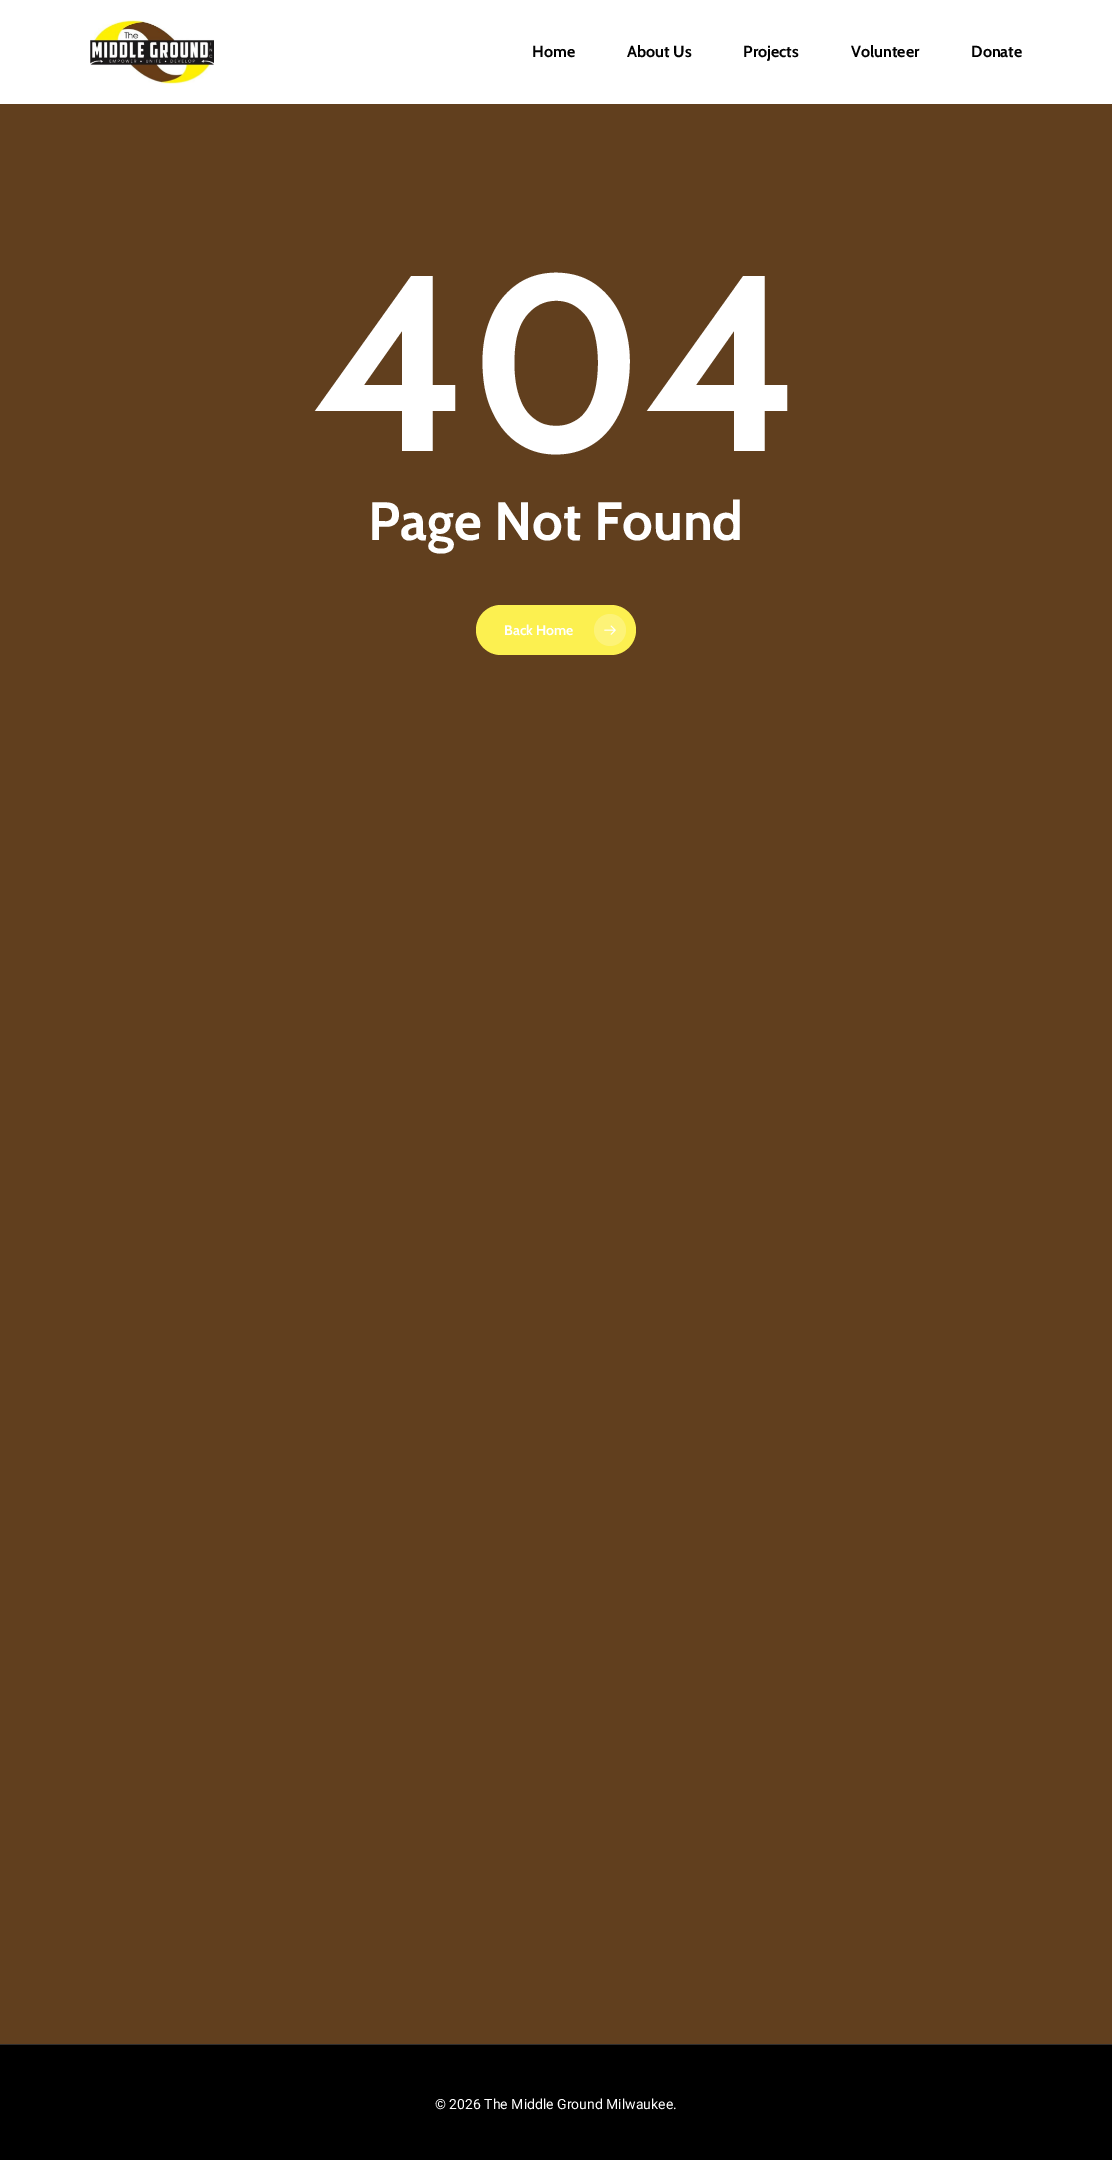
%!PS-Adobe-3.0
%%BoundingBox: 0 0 1112 2160
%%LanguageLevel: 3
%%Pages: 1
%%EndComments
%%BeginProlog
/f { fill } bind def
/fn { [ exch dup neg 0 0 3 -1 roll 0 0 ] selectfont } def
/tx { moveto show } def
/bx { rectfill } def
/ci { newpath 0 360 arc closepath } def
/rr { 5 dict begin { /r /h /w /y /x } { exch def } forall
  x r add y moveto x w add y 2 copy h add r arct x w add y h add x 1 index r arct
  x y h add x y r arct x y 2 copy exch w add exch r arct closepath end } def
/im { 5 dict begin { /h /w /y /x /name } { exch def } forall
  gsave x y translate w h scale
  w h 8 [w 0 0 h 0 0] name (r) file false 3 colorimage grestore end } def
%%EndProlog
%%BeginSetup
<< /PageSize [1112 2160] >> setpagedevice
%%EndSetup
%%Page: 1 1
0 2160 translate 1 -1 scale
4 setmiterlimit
0.38 0.247 0.118 setrgbcolor
0 0 1112 2160 bx
1 setgray
0 0 1112 104 bx
(image0.raw) 90 20 124 64 im
/Cabin-Bold 16 fn
0 setgray
(Home) 532 57 tx
(About Us) 627 57 tx
(Projects) 743 57 tx
(Volunteer) 851 57 tx
(Donate) 971 57 tx
/Cabin-Bold 250 fn
1 setgray
(404) 313 451 tx
/Cabin-Bold 54 fn
(Page Not Found) 368 540 tx
0.988 0.941 0.314 setrgbcolor
476 605 160 50 25 rr f
/Cabin-Bold 14 fn
1 setgray
(Back Home) 504 635 tx
0.992 0.953 0.467 setrgbcolor
610 630 16 ci f
(image1.raw) 604 625 12 10 im
0 setgray
0 2045 1112 115 bx
0.18 setgray
0 2044 1112 1 bx
/Roboto-Regular 14 fn
1 setgray
(© 2026 The Middle Ground Milwaukee.) 435 2109 tx
showpage
%%EOF
